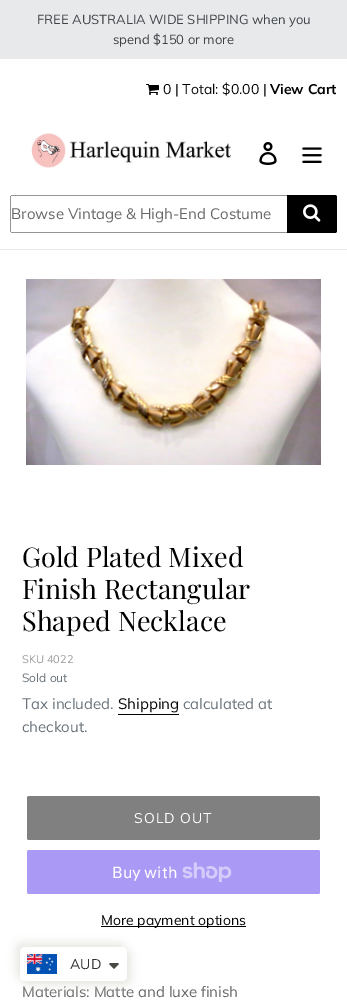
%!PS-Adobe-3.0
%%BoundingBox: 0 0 347 1004
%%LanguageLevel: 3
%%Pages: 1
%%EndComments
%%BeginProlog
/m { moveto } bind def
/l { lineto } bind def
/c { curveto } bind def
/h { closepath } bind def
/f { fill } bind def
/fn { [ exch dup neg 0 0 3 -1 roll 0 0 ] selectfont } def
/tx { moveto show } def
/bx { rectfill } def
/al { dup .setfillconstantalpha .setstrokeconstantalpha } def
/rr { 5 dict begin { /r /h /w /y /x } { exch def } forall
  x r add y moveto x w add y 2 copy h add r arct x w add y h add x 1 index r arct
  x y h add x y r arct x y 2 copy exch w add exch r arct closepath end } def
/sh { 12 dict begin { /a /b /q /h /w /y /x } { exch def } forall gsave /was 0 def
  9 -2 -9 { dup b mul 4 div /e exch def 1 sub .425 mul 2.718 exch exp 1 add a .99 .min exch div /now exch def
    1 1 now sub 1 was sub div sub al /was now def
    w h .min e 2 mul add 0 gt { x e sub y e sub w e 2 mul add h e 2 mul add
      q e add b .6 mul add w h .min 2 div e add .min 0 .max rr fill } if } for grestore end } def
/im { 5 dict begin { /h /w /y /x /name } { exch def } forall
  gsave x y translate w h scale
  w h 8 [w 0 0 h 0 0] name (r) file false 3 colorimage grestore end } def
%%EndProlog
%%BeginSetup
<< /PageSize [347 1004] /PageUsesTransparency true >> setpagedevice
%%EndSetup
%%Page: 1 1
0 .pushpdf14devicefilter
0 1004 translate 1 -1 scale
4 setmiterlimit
1 setgray
0 0 347 1004 bx
0.91 0.914 0.922 setrgbcolor
0 0 347 59 bx
/Muli-Regular 13 fn
0.239 0.259 0.275 setrgbcolor
(FREE AUSTRALIA WIDE SHIPPING when you) 37 24 tx
(spend $150 or more) 113 44 tx
0.91 0.914 0.922 setrgbcolor
0 249 347 1 bx
(image0.raw) 146 84 13 11 im
/Muli-Regular 14 fn
0 setgray
(0 | Total: $0.00 |) 163 94 tx
/Muli-Bold 14 fn
(View Cart) 270 94 tx
(image1.raw) 31 133 200 35 im
(image2.raw) 259 142 18 23 im
(image3.raw) 302 147 20 16 im
0.58 setgray
11 195 276 1 bx
11 232 276 1 bx
10 196 1 36 bx
/Muli-Regular 15 fn
0.4 setgray
(Browse Vintage & High-End Costume) 11 219 tx
0 setgray
287 195 m 335 195 l 336 195 337 196 337 197 c 337 231 l 337 232 336 233 335 233 c 287 233 l h f
(image4.raw) 303 204 18 18 im
(image5.raw) 26 279 295 186 im
/PlayfairDisplay-Regular 27 fn
(Gold Plated Mixed) 22 567 tx
(Finish Rectangular) 22 599 tx
(Shaped Necklace) 22 631 tx
/Muli-Regular 11 fn
0.6 setgray
(SKU 4022) 22 663 tx
/Muli-Regular 12 fn
0.412 0.447 0.482 setrgbcolor
(Sold out) 22 682 tx
/Muli-Regular 15 fn
(Tax included.) 22 709 tx
0 setgray
(Shipping) 118 709 tx
118 714 61 1 bx
0.412 0.447 0.482 setrgbcolor
(calculated at) 183 709 tx
(checkout.) 22 732 tx
0.502 setgray
27 796 293 44 2 rr f
/Muli-Regular 14 fn
1 setgray
134 823 m 1 0 (SOLD OUT) ashow
0.667 0.6 0.961 setrgbcolor
27 850 293 44 2 rr f
/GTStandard-Regular 16 fn
1 setgray
(Buy with) 112 878 tx
(image6.raw) 182 862 50 20 im
0 setgray
101 926 145 1 bx
/Muli-Regular 14 fn
(More payment options) 101 925 tx
/Muli-Regular 15 fn
0.4 setgray
(Materials: Matte and luxe finish) 22 997 tx
0.91 0.91 0.886 setrgbcolor
16 943 107 34 5 4.5 1 sh
24 951 107 34 5 4.5 1 sh
1 setgray
20 947 107 34 5 rr f
(image7.raw) 27 954 30 20 im
/Muli-Regular 14 fn
0.2 setgray
(AUD) 70 969 tx
0.278 0.286 0.259 setrgbcolor
111 963 m 110 963 109.5 963.5 109 964 c 114 969 l 119 964 l 118 963 l h f
.poppdf14devicefilter showpage
%%EOF
